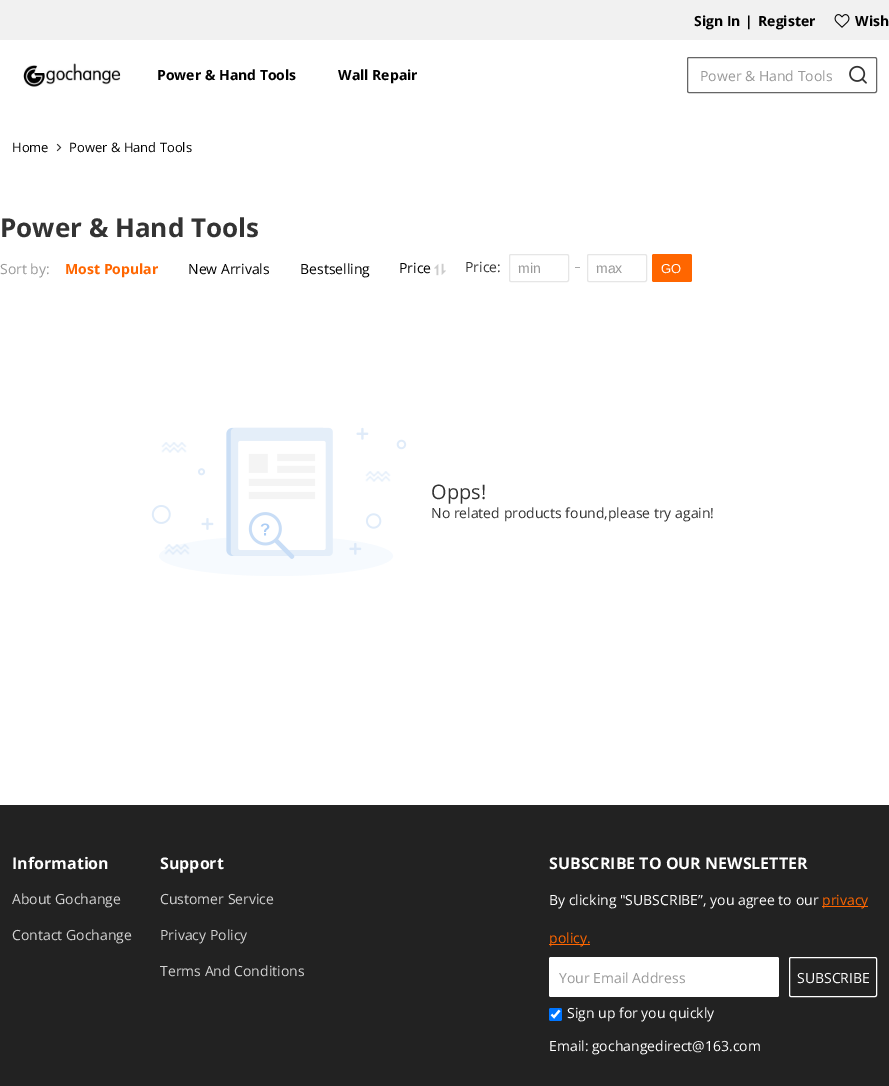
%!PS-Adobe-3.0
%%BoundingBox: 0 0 889 1086
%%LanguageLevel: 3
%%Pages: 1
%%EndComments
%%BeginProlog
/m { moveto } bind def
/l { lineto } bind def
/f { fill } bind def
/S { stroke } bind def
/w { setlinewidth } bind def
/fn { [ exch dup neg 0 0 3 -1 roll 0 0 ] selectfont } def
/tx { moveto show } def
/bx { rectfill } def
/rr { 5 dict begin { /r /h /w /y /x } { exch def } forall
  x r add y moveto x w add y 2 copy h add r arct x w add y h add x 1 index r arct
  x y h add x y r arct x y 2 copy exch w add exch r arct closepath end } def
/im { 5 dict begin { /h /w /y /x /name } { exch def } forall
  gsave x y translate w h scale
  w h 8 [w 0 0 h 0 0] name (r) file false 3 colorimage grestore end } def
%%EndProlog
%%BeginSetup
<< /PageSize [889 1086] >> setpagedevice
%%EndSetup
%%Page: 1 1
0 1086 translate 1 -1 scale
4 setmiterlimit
1 setgray
0 0 889 1086 bx
0.945 setgray
0 0 889 40 bx
/OpenSans-Bold 14 fn
0 setgray
(Sign In) 694 26 tx
(|) 745 26 tx
(Register) 758 26 tx
(image0.raw) 834 14 16 14 im
(Wish) 855 26 tx
(image1.raw) 23 63 98 24 im
(Power & Hand Tools) 157 80 tx
(Wall Repair) 338 80 tx
0.4 setgray
687.5 57.5 189 35 1.5 rr S
/OpenSans-Regular 14 fn
0.6 setgray
(Power & Hand Tools) 700 81 tx
(image2.raw) 849 65 18 19 im
/OpenSans-Regular 13 fn
0 setgray
(Home) 12 152 tx
(image3.raw) 56 143 6 9 im
(Power & Hand Tools) 69 152 tx
/OpenSans-Bold 26 fn
0.2 setgray
(Power & Hand Tools) 0 237 tx
/OpenSans-Regular 14 fn
0.6 setgray
(Sort by:) 0 274 tx
/OpenSans-Bold 14 fn
1 0.4 0 setrgbcolor
(Most Popular) 65 274 tx
/OpenSans-Regular 14 fn
0 setgray
(New Arrivals) 188 274 tx
(Bestselling) 300 274 tx
(Price) 399 273 tx
(image4.raw) 434 264 5 12 im
(image5.raw) 441 263 5 12 im
0.2 setgray
(Price:) 465 272 tx
0.902 setgray
509.5 254.5 59 27 1.5 rr S
/LiberationSans-Regular 14 fn
0.6 setgray
(min) 518 273 tx
0.663 setgray
575 267 5 1 bx
0.902 setgray
587.5 254.5 59 27 1.5 rr S
0.6 setgray
(max) 596 273 tx
1 0.4 0 setrgbcolor
652 254 40 28 2 rr f
/LiberationSans-Regular 13 fn
1 setgray
(GO) 661 273 tx
(image6.raw) 151 427 256 149 im
/OpenSans-Regular 20 fn
0.2 setgray
(Opps!) 431 499 tx
/OpenSans-Regular 14 fn
(No related products found,please try again!) 431 518 tx
0.133 setgray
0 805 889 281 bx
/OpenSans-Bold 16 fn
1 setgray
(Information) 12 869 tx
/OpenSans-Regular 14 fn
0.827 setgray
(About Gochange) 12 904 tx
(Contact Gochange) 12 940 tx
/OpenSans-Bold 16 fn
1 setgray
(Support) 160 869 tx
/OpenSans-Regular 14 fn
0.827 setgray
(Customer Service) 160 904 tx
(Privacy Policy) 160 940 tx
(Terms And Conditions) 160 976 tx
/OpenSans-Bold 16 fn
1 setgray
(SUBSCRIBE TO OUR NEWSLETTER) 549 869 tx
/OpenSans-Regular 14 fn
(By clicking "SUBSCRIBE”, you agree to our) 549 905 tx
1 0.4 0 setrgbcolor
822 906 46 1 bx
(privacy) 822 905 tx
549 944 41 1 bx
(policy.) 549 943 tx
1 setgray
549 957 230 40 2 rr f
0.6 setgray
(Your Email Address) 559 983 tx
1 setgray
789.5 957.5 87 39 1.5 rr S
(SUBSCRIBE) 797 983 tx
0 0.459 1 setrgbcolor
549 1008 13 13 2 rr f
1 setgray
2.1 w
551.5 1014.5 m 554 1017 l 559.5 1010.5 l S
(Sign up for you quickly) 567 1018 tx
(Email: gochangedirect@163.com) 549 1051 tx
showpage
%%EOF
